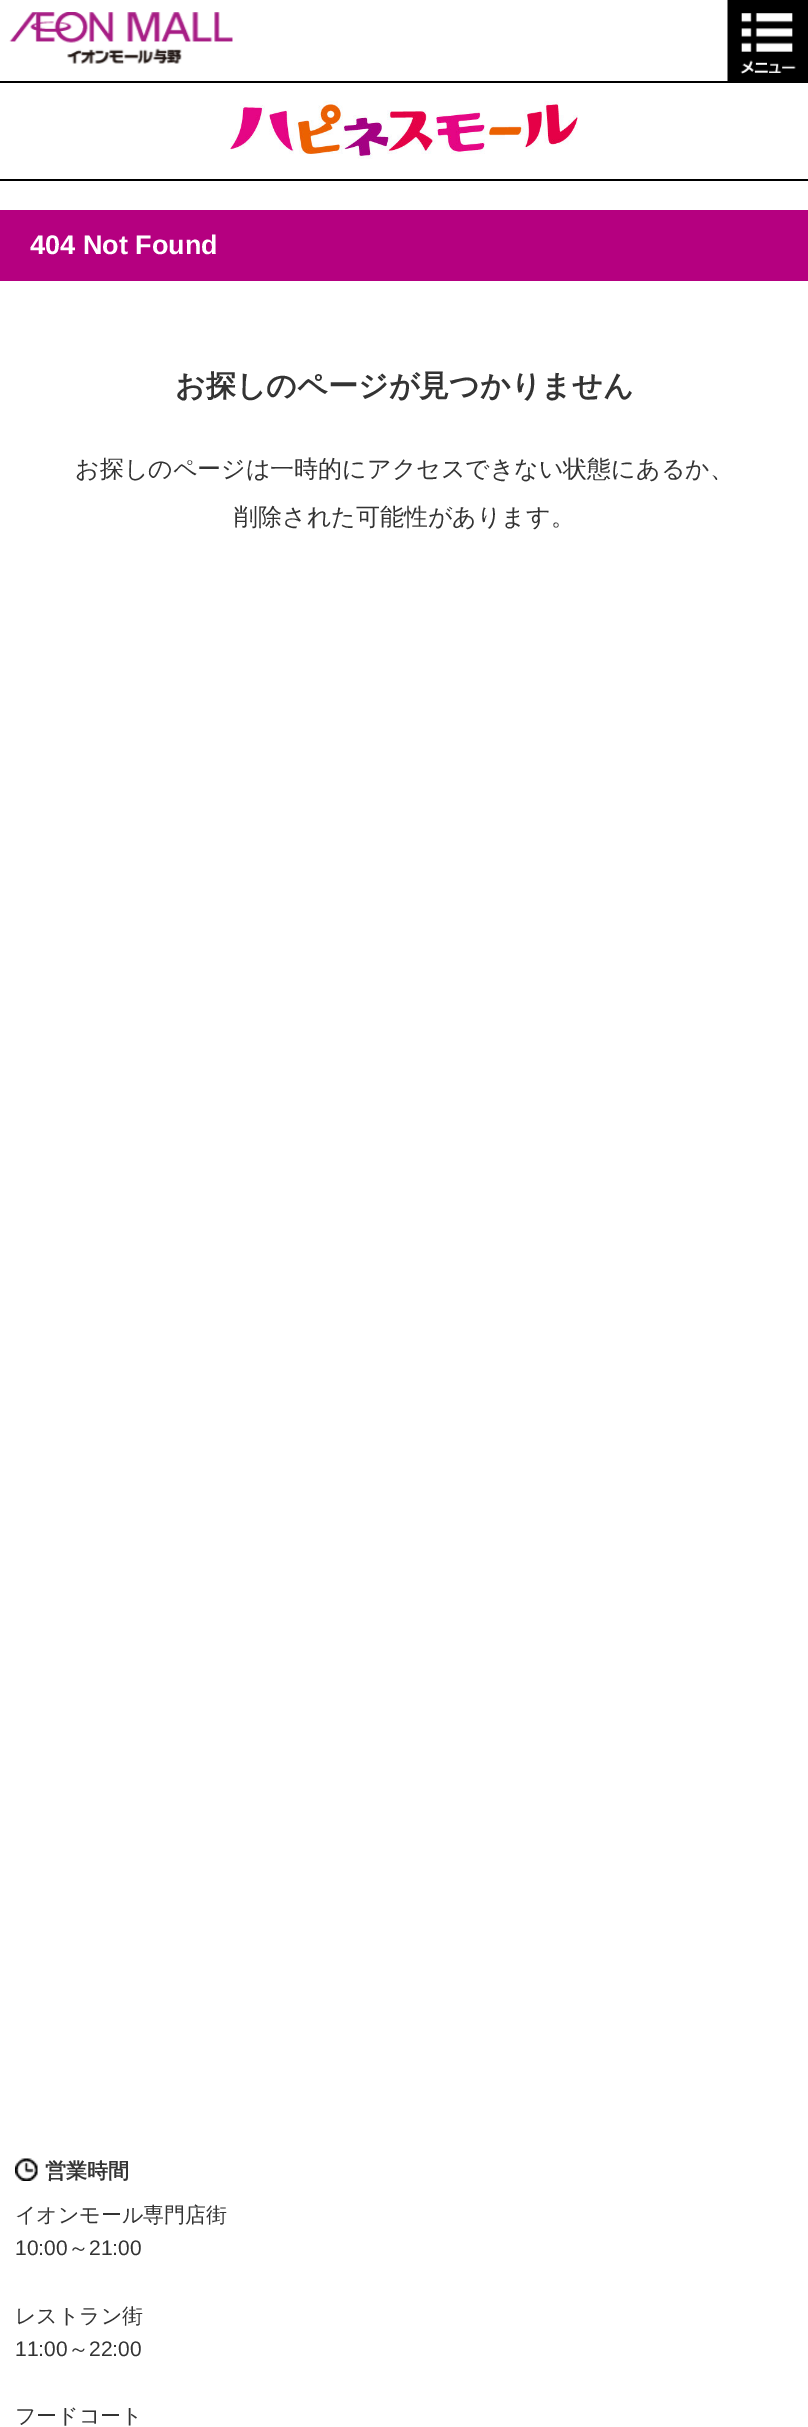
%!PS-Adobe-3.0
%%BoundingBox: 0 0 808 2427
%%LanguageLevel: 3
%%Pages: 1
%%EndComments
%%BeginProlog
/fn { [ exch dup neg 0 0 3 -1 roll 0 0 ] selectfont } def
/tx { moveto show } def
/bx { rectfill } def
/im { 5 dict begin { /h /w /y /x /name } { exch def } forall
  gsave x y translate w h scale
  w h 8 [w 0 0 h 0 0] name (r) file false 3 colorimage grestore end } def
%%EndProlog
%%BeginSetup
<< /PageSize [808 2427] >> setpagedevice
%%EndSetup
%%Page: 1 1
0 2427 translate 1 -1 scale
4 setmiterlimit
1 setgray
0 0 808 2427 bx
0 setgray
0 179 808 2 bx
(image0.raw) 727 0 81 81 im
0 81 808 2 bx
(image1.raw) 9 12 224 52 im
(image2.raw) 230 100 348 59 im
0.71 0 0.502 setrgbcolor
0 210 808 71 bx
/LiberationSans-Bold 27 fn
1 setgray
(404 Not Found) 30 254 tx
/WenQuanYiZenHei-Bold 30 fn
0.2 setgray
(お探しのページが見つかりません) 175 396 tx
/WenQuanYiZenHei-Medium 24 fn
(お探しのページは一時的にアクセスできない状態にあるか、) 75 477 tx
(削除された可能性があります。) 234 525 tx
(image3.raw) 15 2158 23 23 im
/WenQuanYiZenHei-Bold 21 fn
(営業時間) 45 2178 tx
/WenQuanYiZenHei-Medium 21 fn
(イオンモール専門店街) 15 2222 tx
/LiberationSans-Regular 21 fn
(10:00) 15 2255 tx
/WenQuanYiZenHei-Medium 21 fn
(～) 68 2255 tx
/LiberationSans-Regular 21 fn
(21:00) 89 2255 tx
/WenQuanYiZenHei-Medium 21 fn
(レストラン街) 15 2323 tx
/LiberationSans-Regular 21 fn
(11:00) 15 2356 tx
/WenQuanYiZenHei-Medium 21 fn
(～) 68 2356 tx
/LiberationSans-Regular 21 fn
(22:00) 89 2356 tx
/WenQuanYiZenHei-Medium 21 fn
(フードコート) 15 2423 tx
showpage
%%EOF
